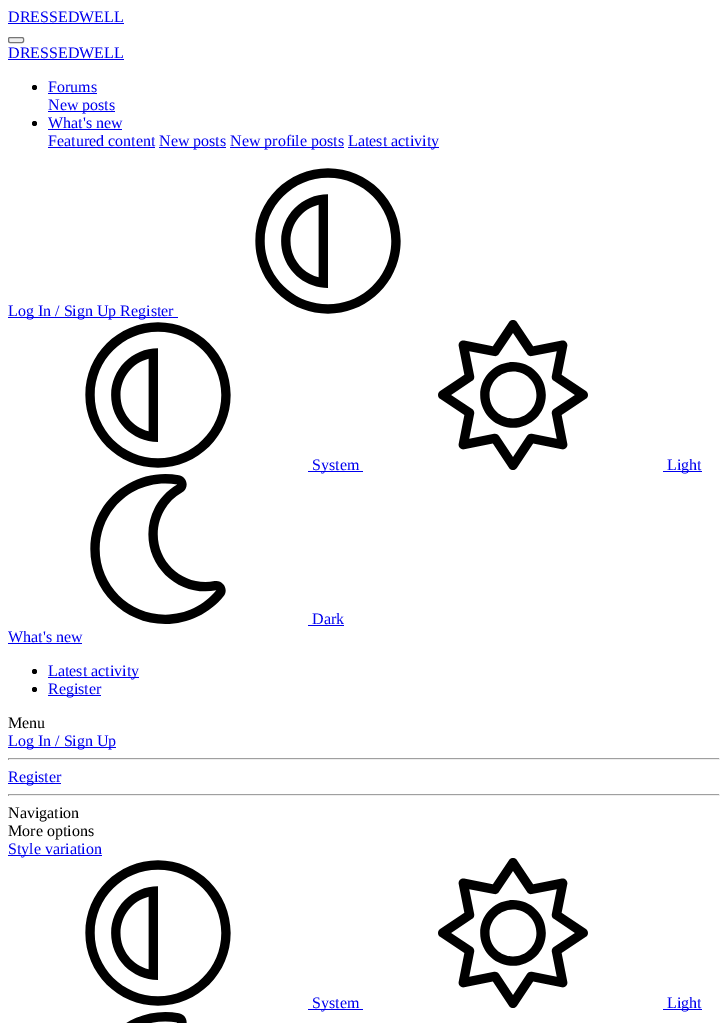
%!PS-Adobe-3.0
%%BoundingBox: 0 0 728 1023
%%LanguageLevel: 3
%%Pages: 1
%%EndComments
%%BeginProlog
/f { fill } bind def
/S { stroke } bind def
/q { gsave } bind def
/Q { grestore } bind def
/fn { [ exch dup neg 0 0 3 -1 roll 0 0 ] selectfont } def
/tx { moveto show } def
/bx { rectfill } def
/ci { newpath 0 360 arc closepath } def
/rr { 5 dict begin { /r /h /w /y /x } { exch def } forall
  x r add y moveto x w add y 2 copy h add r arct x w add y h add x 1 index r arct
  x y h add x y r arct x y 2 copy exch w add exch r arct closepath end } def
/im { 5 dict begin { /h /w /y /x /name } { exch def } forall
  gsave x y translate w h scale
  w h 8 [w 0 0 h 0 0] name (r) file false 3 colorimage grestore end } def
%%EndProlog
%%BeginSetup
<< /PageSize [728 1023] >> setpagedevice
%%EndSetup
%%Page: 1 1
0 1023 translate 1 -1 scale
4 setmiterlimit
1 setgray
0 0 728 1023 bx
/LiberationSerif-Regular 16 fn
0 0 0.933 setrgbcolor
(DRESSEDWELL) 8 22 tx
8 23 116 1 bx
0.937 setgray
8.5 37.5 15 5 1.5 rr q f Q
0.463 setgray
S
0 0 0.933 setrgbcolor
(DRESSEDWELL) 8 58 tx
8 59 116 1 bx
0 setgray
34.5 87.5 2.5 ci f
0 0 0.933 setrgbcolor
(Forums) 48 92 tx
48 93 49 1 bx
48 111 67 1 bx
(New posts) 48 110 tx
0 setgray
34.5 123.5 2.5 ci f
0 0 0.933 setrgbcolor
(What's new) 48 128 tx
48 129 74 1 bx
(Featured content) 48 146 tx
48 147 107 1 bx
159 147 67 1 bx
(New posts) 159 146 tx
230 147 114 1 bx
(New profile posts) 230 146 tx
348 147 91 1 bx
(Latest activity) 348 146 tx
8 317 170 1 bx
(Log In / Sign Up Register) 8 316 tx
(image0.raw) 255 168 146 146 im
(image1.raw) 85 322 146 146 im
308 471 55 1 bx
(System) 312 470 tx
(image2.raw) 438 320 150 150 im
663 471 39 1 bx
(Light) 667 470 tx
(image3.raw) 90 474 136 150 im
(Dark) 312 624 tx
308 625 36 1 bx
(What's new) 8 642 tx
8 643 74 1 bx
0 setgray
34.5 671.5 2.5 ci f
0 0 0.933 setrgbcolor
48 677 91 1 bx
(Latest activity) 48 676 tx
0 setgray
34.5 689.5 2.5 ci f
0 0 0.933 setrgbcolor
48 695 53 1 bx
(Register) 48 694 tx
0 setgray
(Menu) 8 728 tx
0 0 0.933 setrgbcolor
8 747 108 1 bx
(Log In / Sign Up) 8 746 tx
0.624 setgray
8 758 712 1 bx
0.933 setgray
719 758 1 2 bx
8 759 712 1 bx
0.624 setgray
8 758 1 2 bx
0 0 0.933 setrgbcolor
8 783 53 1 bx
(Register) 8 782 tx
0.624 setgray
8 794 712 1 bx
0.933 setgray
719 794 1 2 bx
8 795 712 1 bx
0.624 setgray
8 794 1 2 bx
0 setgray
(Navigation) 8 818 tx
(More options) 8 836 tx
0 0 0.933 setrgbcolor
8 855 94 1 bx
(Style variation) 8 854 tx
(image1.raw) 85 860 146 146 im
308 1009 55 1 bx
(System) 312 1008 tx
(image2.raw) 438 858 150 150 im
663 1009 39 1 bx
(Light) 667 1008 tx
(image4.raw) 126 1012 61 11 im
showpage
%%EOF
